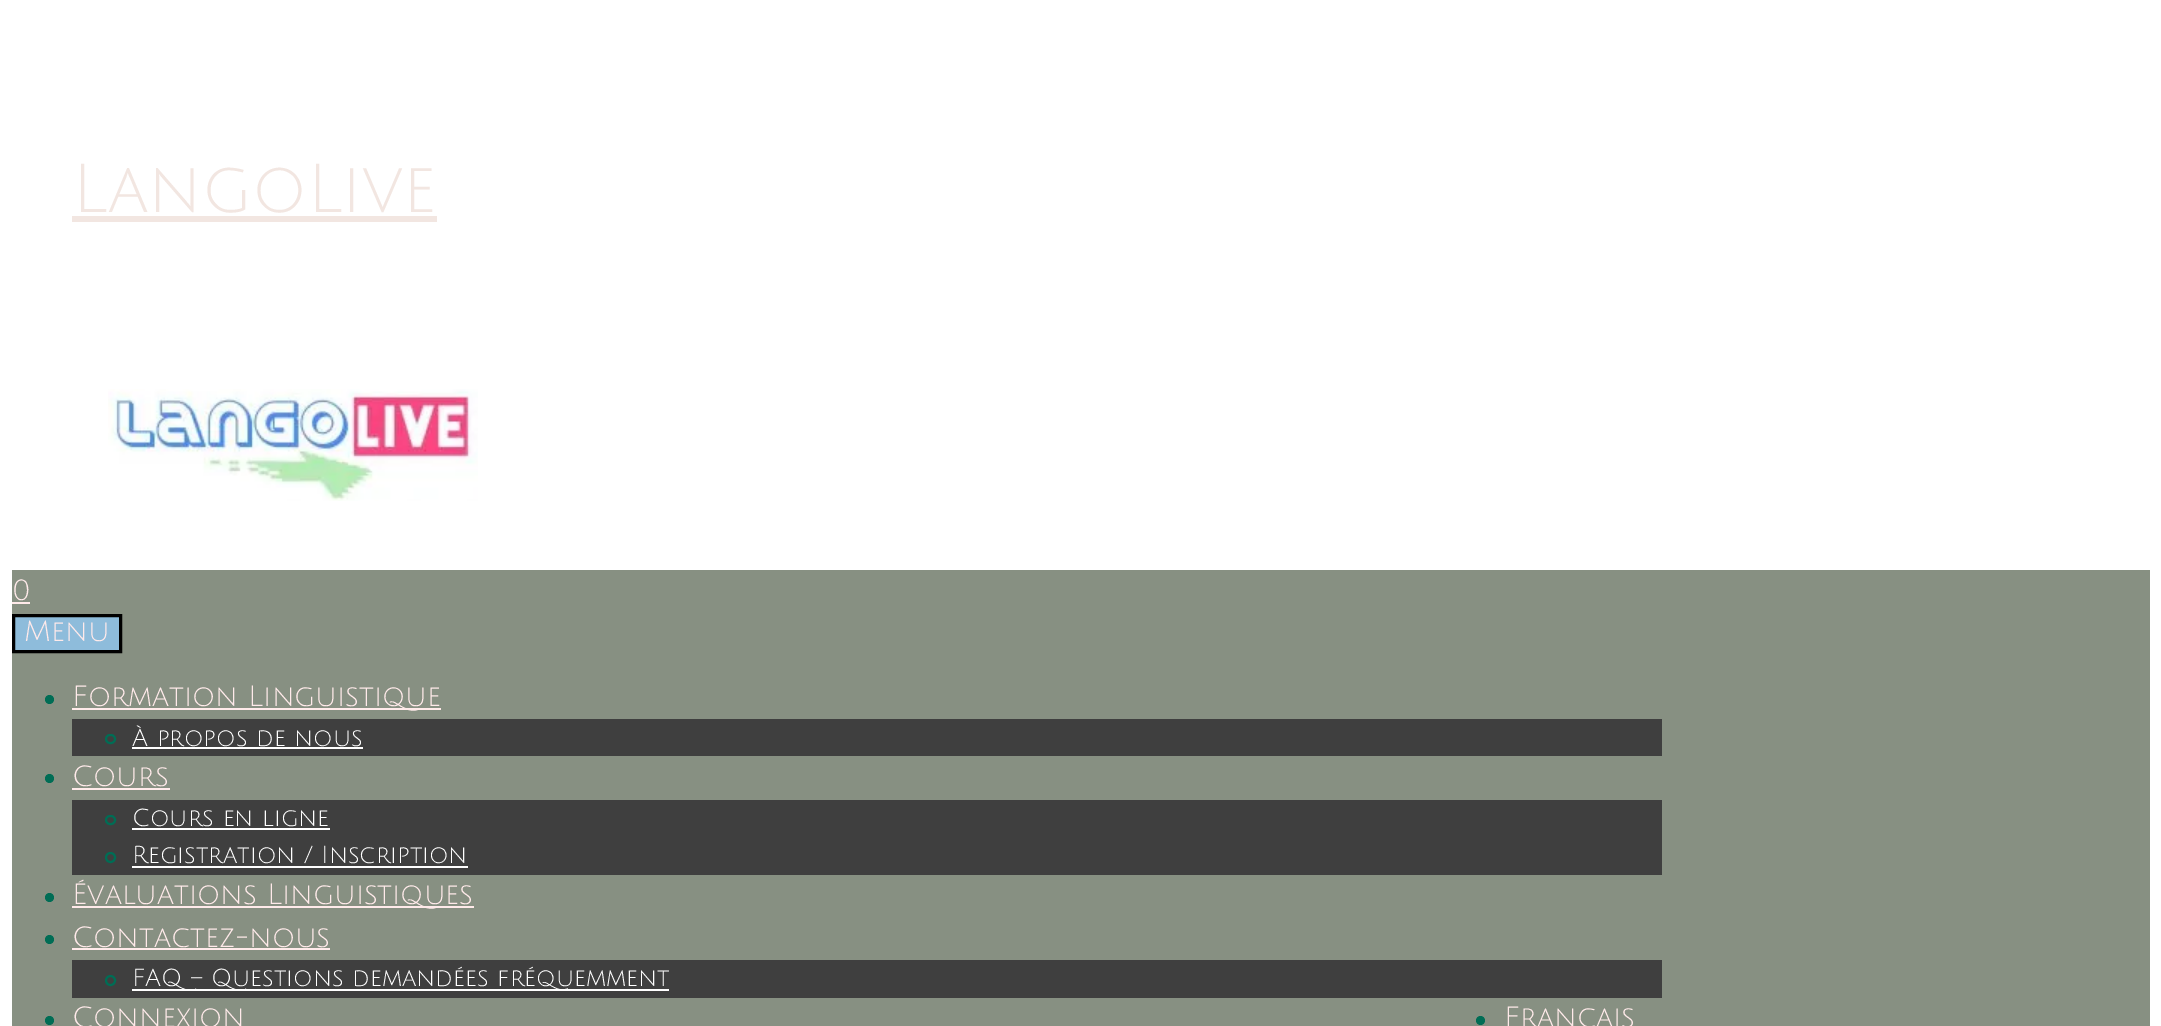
%!PS-Adobe-3.0
%%BoundingBox: 0 0 2161 1026
%%LanguageLevel: 3
%%Pages: 1
%%EndComments
%%BeginProlog
/m { moveto } bind def
/l { lineto } bind def
/h { closepath } bind def
/f { fill } bind def
/S { stroke } bind def
/q { gsave } bind def
/Q { grestore } bind def
/w { setlinewidth } bind def
/fn { [ exch dup neg 0 0 3 -1 roll 0 0 ] selectfont } def
/tx { moveto show } def
/bx { rectfill } def
/ci { newpath 0 360 arc closepath } def
/rr { 5 dict begin { /r /h /w /y /x } { exch def } forall
  x r add y moveto x w add y 2 copy h add r arct x w add y h add x 1 index r arct
  x y h add x y r arct x y 2 copy exch w add exch r arct closepath end } def
/im { 5 dict begin { /h /w /y /x /name } { exch def } forall
  gsave x y translate w h scale
  w h 8 [w 0 0 h 0 0] name (r) file false 3 colorimage grestore end } def
%%EndProlog
%%BeginSetup
<< /PageSize [2161 1026] >> setpagedevice
%%EndSetup
%%Page: 1 1
0 1026 translate 1 -1 scale
4 setmiterlimit
1 setgray
0 0 2161 1026 bx
/JuliusSansOne-Regular 67.5 fn
0.949 0.902 0.882 setrgbcolor
(LangoLive) 72 212 tx
72 216 365 6 bx
(image0.raw) 108 389 370 112 im
0.529 0.565 0.51 setrgbcolor
12 570 2138 456 bx
/JuliusSansOne-Regular 28.5 fn
1 0.918 0.918 setrgbcolor
(0) 12 600 tx
12 602 18 2 bx
0.557 0.737 0.859 setrgbcolor
13.5 615.5 m 120.5 615.5 l 120.5 651.5 l 13.5 651.5 l h q f Q
0 setgray
3 w
S
1 0.918 0.918 setrgbcolor
(Menu) 24 641 tx
0 0.427 0.333 setrgbcolor
49.5 699.5 4.5 ci f
1 0.918 0.918 setrgbcolor
72 708 369 2 bx
(Formation Linguistique) 72 706 tx
0.247 setgray
72 719 1590 37 bx
0 0.427 0.333 setrgbcolor
2 w
106 735 9 8 4 rr S
/JuliusSansOne-Regular 24 fn
1 setgray
(À propos de nous) 132 746 tx
132 747 231 2 bx
0 0.427 0.333 setrgbcolor
49.5 778.5 4.5 ci f
/JuliusSansOne-Regular 28.5 fn
1 0.918 0.918 setrgbcolor
(Cours) 72 786 tx
72 788 98 2 bx
0.247 setgray
72 800 1590 75 bx
0 0.427 0.333 setrgbcolor
106 816 9 8 4 rr S
/JuliusSansOne-Regular 24 fn
1 setgray
(Cours en ligne) 132 826 tx
132 828 198 2 bx
0 0.427 0.333 setrgbcolor
110.5 857.5 4.5 ci S
1 setgray
(Registration / Inscription) 132 863 tx
132 866 336 2 bx
0 0.427 0.333 setrgbcolor
49.5 897.5 4.5 ci f
1 0.918 0.918 setrgbcolor
72 906 402 2 bx
/JuliusSansOne-Regular 28.5 fn
(Évaluations Linguistiques) 72 904 tx
0 0.427 0.333 setrgbcolor
49.5 939.5 4.5 ci f
1 0.918 0.918 setrgbcolor
(Contactez-nous) 72 947 tx
72 948 258 2 bx
0.247 setgray
72 960 1590 38 bx
0 0.427 0.333 setrgbcolor
110.5 980.5 4.5 ci S
1 setgray
132 989 537 2 bx
/JuliusSansOne-Regular 24 fn
(FAQ – Questions demandées fréquemment) 132 986 tx
0 0.427 0.333 setrgbcolor
49.5 1020.5 4.5 ci f
/JuliusSansOne-Regular 28.5 fn
1 0.918 0.918 setrgbcolor
(Connexion) 72 1027 tx
0 0.427 0.333 setrgbcolor
1480.5 1020.5 4.5 ci f
1 0.918 0.918 setrgbcolor
(Français) 1504 1027 tx
showpage
%%EOF
